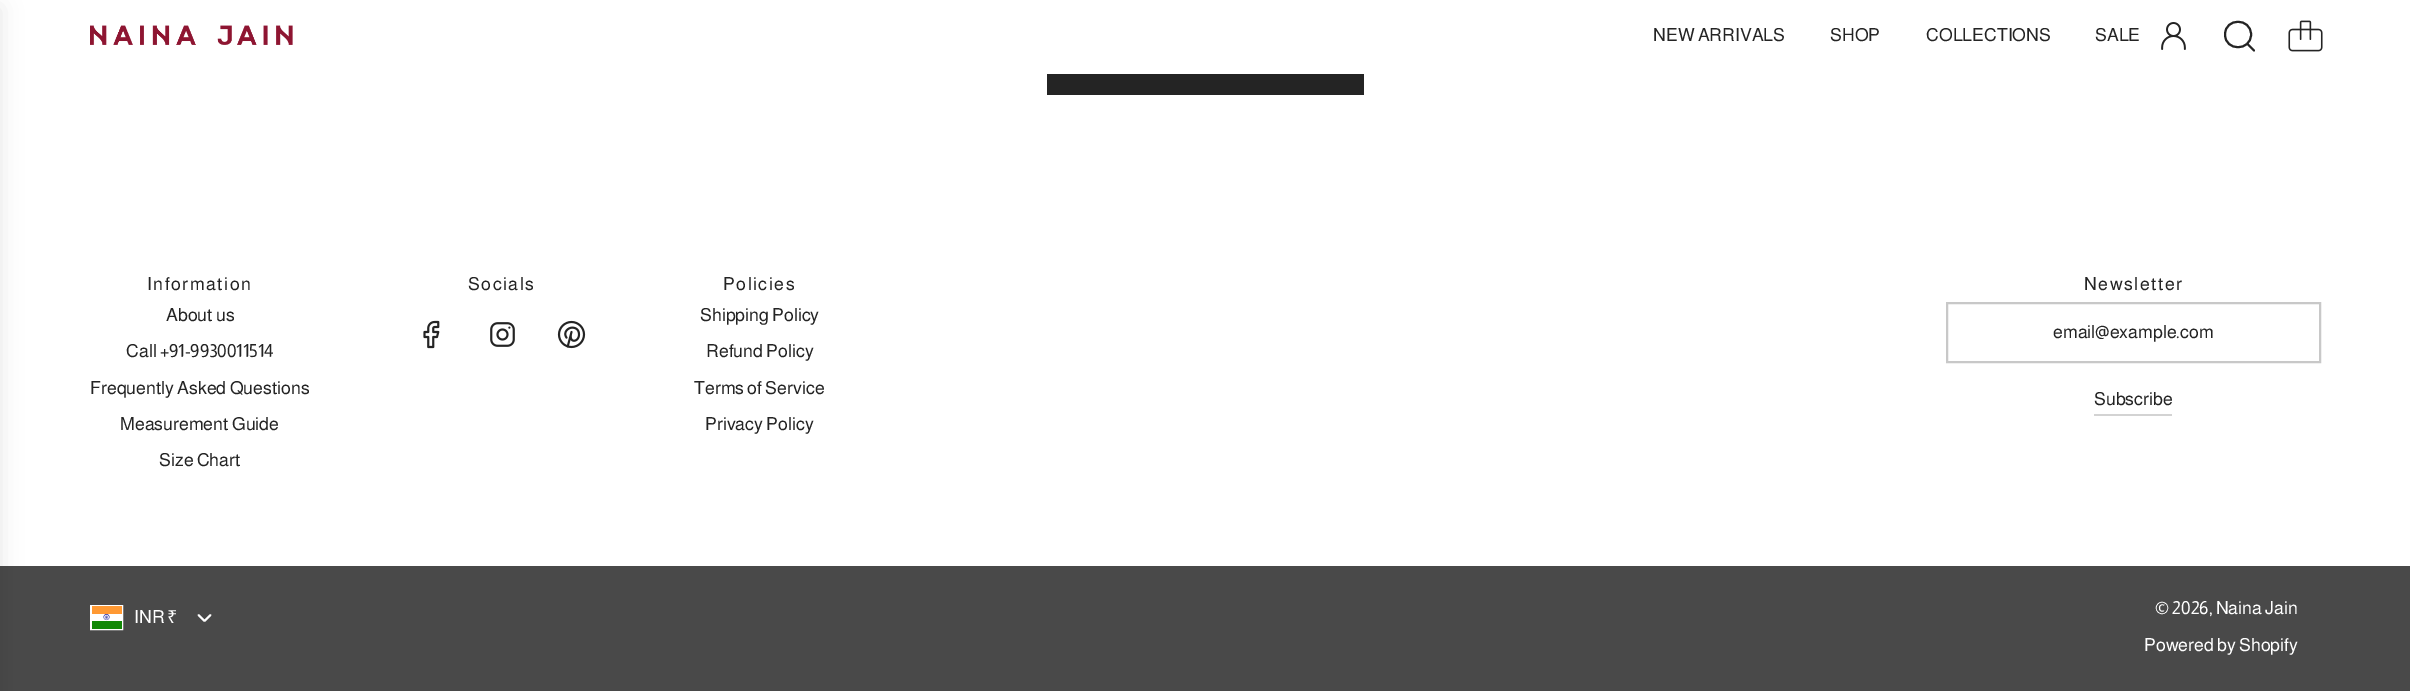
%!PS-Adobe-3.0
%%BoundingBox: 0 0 2410 691
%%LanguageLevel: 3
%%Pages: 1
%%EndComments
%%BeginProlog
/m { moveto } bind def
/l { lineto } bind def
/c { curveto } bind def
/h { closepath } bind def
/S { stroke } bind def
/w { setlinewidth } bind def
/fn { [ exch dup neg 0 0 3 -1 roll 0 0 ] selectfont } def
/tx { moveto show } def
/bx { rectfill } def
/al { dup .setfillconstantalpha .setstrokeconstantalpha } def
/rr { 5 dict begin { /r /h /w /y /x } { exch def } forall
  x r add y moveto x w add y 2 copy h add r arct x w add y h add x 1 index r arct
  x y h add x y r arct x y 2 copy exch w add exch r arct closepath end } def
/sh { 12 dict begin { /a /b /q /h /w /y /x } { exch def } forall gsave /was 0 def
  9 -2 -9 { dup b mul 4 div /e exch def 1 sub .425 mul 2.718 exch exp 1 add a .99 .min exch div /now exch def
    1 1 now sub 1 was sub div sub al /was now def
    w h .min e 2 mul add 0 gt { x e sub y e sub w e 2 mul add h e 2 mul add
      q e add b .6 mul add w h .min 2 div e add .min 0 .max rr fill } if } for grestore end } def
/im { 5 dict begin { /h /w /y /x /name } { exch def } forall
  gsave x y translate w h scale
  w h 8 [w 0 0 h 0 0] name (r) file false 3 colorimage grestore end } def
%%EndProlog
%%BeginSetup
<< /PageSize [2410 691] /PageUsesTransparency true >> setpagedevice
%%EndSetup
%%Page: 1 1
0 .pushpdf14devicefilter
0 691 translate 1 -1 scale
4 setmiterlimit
1 setgray
0 0 2410 691 bx
0.286 setgray
0 566 2410 125 bx
0 setgray
-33 8 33 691 0 11 0.1 sh
(image0.raw) 90 25 203 20 im
/Almarai-Regular 18 fn
0.141 setgray
(NEW ARRIVALS) 1653 41 tx
(SHOP) 1830 41 tx
(COLLECTIONS) 1926 41 tx
(SALE) 2095 41 tx
(image1.raw) 2161 22 25 28 im
2 w
1 setlinecap
1 setlinejoin
2247.5 44 m 2254 50.5 l 2225 34.5 m 2225 51.5 2251 51.5 2251 34.5 c 2251 17.5 2225 17.5 2225 34.5 c h S
(image2.raw) 2288 20 35 32 im
1047 74 317 21 bx
147 290 m 1.5 0 (Information) ashow
(About us) 166 321 tx
(Call +91-9930011514) 126 357 tx
(Frequently Asked Questions) 90 394 tx
(Measurement Guide) 120 430 tx
(Size Chart) 159 466 tx
468 290 m 1.5 0 (Socials) ashow
(image3.raw) 423 320 17 29 im
(image4.raw) 490 322 25 25 im
(image5.raw) 557 320 29 29 im
723 290 m 1.5 0 (Policies) ashow
(Shipping Policy) 700 321 tx
(Refund Policy) 706 357 tx
(Terms of Service) 694 394 tx
(Privacy Policy) 705 430 tx
2084 290 m 1.5 0 (Newsletter) ashow
0.784 setgray
0 setlinecap
0 setlinejoin
1947 303 373 59 rectstroke
0.141 setgray
(email@example.com) 2053 338 tx
0.827 setgray
2094 414 78 2 bx
0.141 setgray
(Subscribe) 2094 405 tx
1 setgray
91 606 31 23 rectstroke
(image6.raw) 92 606 30 23 im
(INR) 134 623 tx
/NotoSans-Regular 18 fn
(₹) 167 623 tx
1.8 w
1 setlinecap
1 setlinejoin
198.5 615 m 204.5 621 l 210.5 615 l S
/Almarai-Regular 18 fn
(© 2026, Naina Jain) 2155 614 tx
(Powered by Shopify) 2144 651 tx
.poppdf14devicefilter showpage
%%EOF
